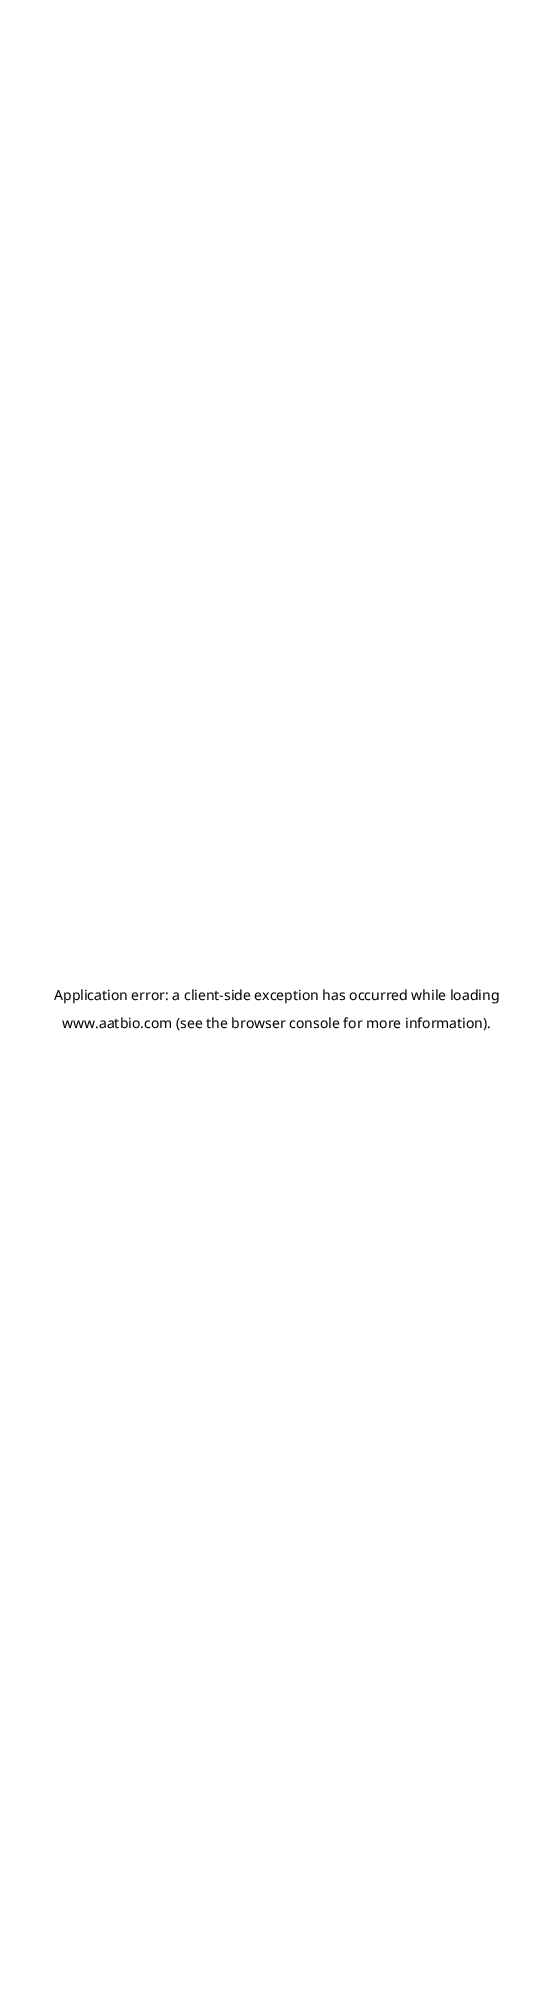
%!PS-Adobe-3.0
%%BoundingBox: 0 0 554 2002
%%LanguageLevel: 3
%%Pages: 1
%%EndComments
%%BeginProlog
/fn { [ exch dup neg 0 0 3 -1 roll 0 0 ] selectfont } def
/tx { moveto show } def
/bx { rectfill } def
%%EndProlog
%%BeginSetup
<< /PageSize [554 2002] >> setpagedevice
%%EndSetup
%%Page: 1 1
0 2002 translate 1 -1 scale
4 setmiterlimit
1 setgray
0 0 554 2002 bx
/NotoSans-Regular 14 fn
0 setgray
(Application error: a client-side exception has occurred while loading) 54 1000 tx
(www.aatbio.com \(see the browser console for more information\).) 62 1028 tx
showpage
%%EOF
